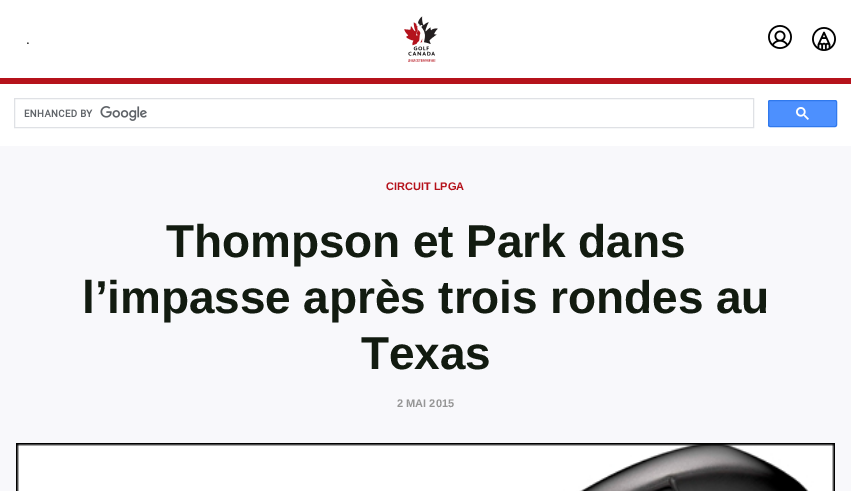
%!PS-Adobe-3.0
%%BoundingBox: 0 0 851 491
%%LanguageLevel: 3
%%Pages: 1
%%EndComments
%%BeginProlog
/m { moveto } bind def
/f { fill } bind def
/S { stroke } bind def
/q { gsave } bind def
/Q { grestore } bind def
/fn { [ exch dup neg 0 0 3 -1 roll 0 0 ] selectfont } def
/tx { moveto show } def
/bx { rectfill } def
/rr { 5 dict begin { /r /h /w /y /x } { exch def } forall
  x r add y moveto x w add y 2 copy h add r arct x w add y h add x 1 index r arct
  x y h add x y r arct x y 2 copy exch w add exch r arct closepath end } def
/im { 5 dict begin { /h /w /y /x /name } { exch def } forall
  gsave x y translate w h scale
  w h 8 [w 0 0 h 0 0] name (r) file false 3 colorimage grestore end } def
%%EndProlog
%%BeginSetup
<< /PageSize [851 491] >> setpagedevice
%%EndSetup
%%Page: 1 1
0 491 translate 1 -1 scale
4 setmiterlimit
0.973 0.973 0.984 setrgbcolor
0 0 851 491 bx
1 setgray
0 0 851 146 bx
/LiberationSans-Regular 13 fn
0 setgray
(.) 26 44 tx
(image0.raw) 404 16 34 46 im
(image1.raw) 768 25 24 24 im
(image2.raw) 812 27 24 24 im
0.71 0.071 0.106 setrgbcolor
0 78 851 6 bx
0.875 0.882 0.898 setrgbcolor
14.5 98.5 739 29 rectstroke
(image3.raw) 24 106 123 15 im
0.302 0.565 0.996 setrgbcolor
768.5 100.5 68 26 1.5 rr q f Q
0.188 0.475 0.929 setrgbcolor
S
(image4.raw) 796 107 13 13 im
/LiberationSans-Bold 11 fn
0.71 0.071 0.106 setrgbcolor
(CIRCUIT LPGA) 386 190 tx
/LiberationSans-Bold 46 fn
0.071 0.106 0.063 setrgbcolor
166 257 m -0.1 0 (Thompson et Park dans) ashow
82 313 m -0.1 0 (l’impasse après trois rondes au) ashow
361 369 m -0.1 0 (Texas) ashow
/LiberationSans-Bold 11 fn
0.588 setgray
(2 MAI 2015) 397 407 tx
(image5.raw) 16 443 819 48 im
showpage
%%EOF
